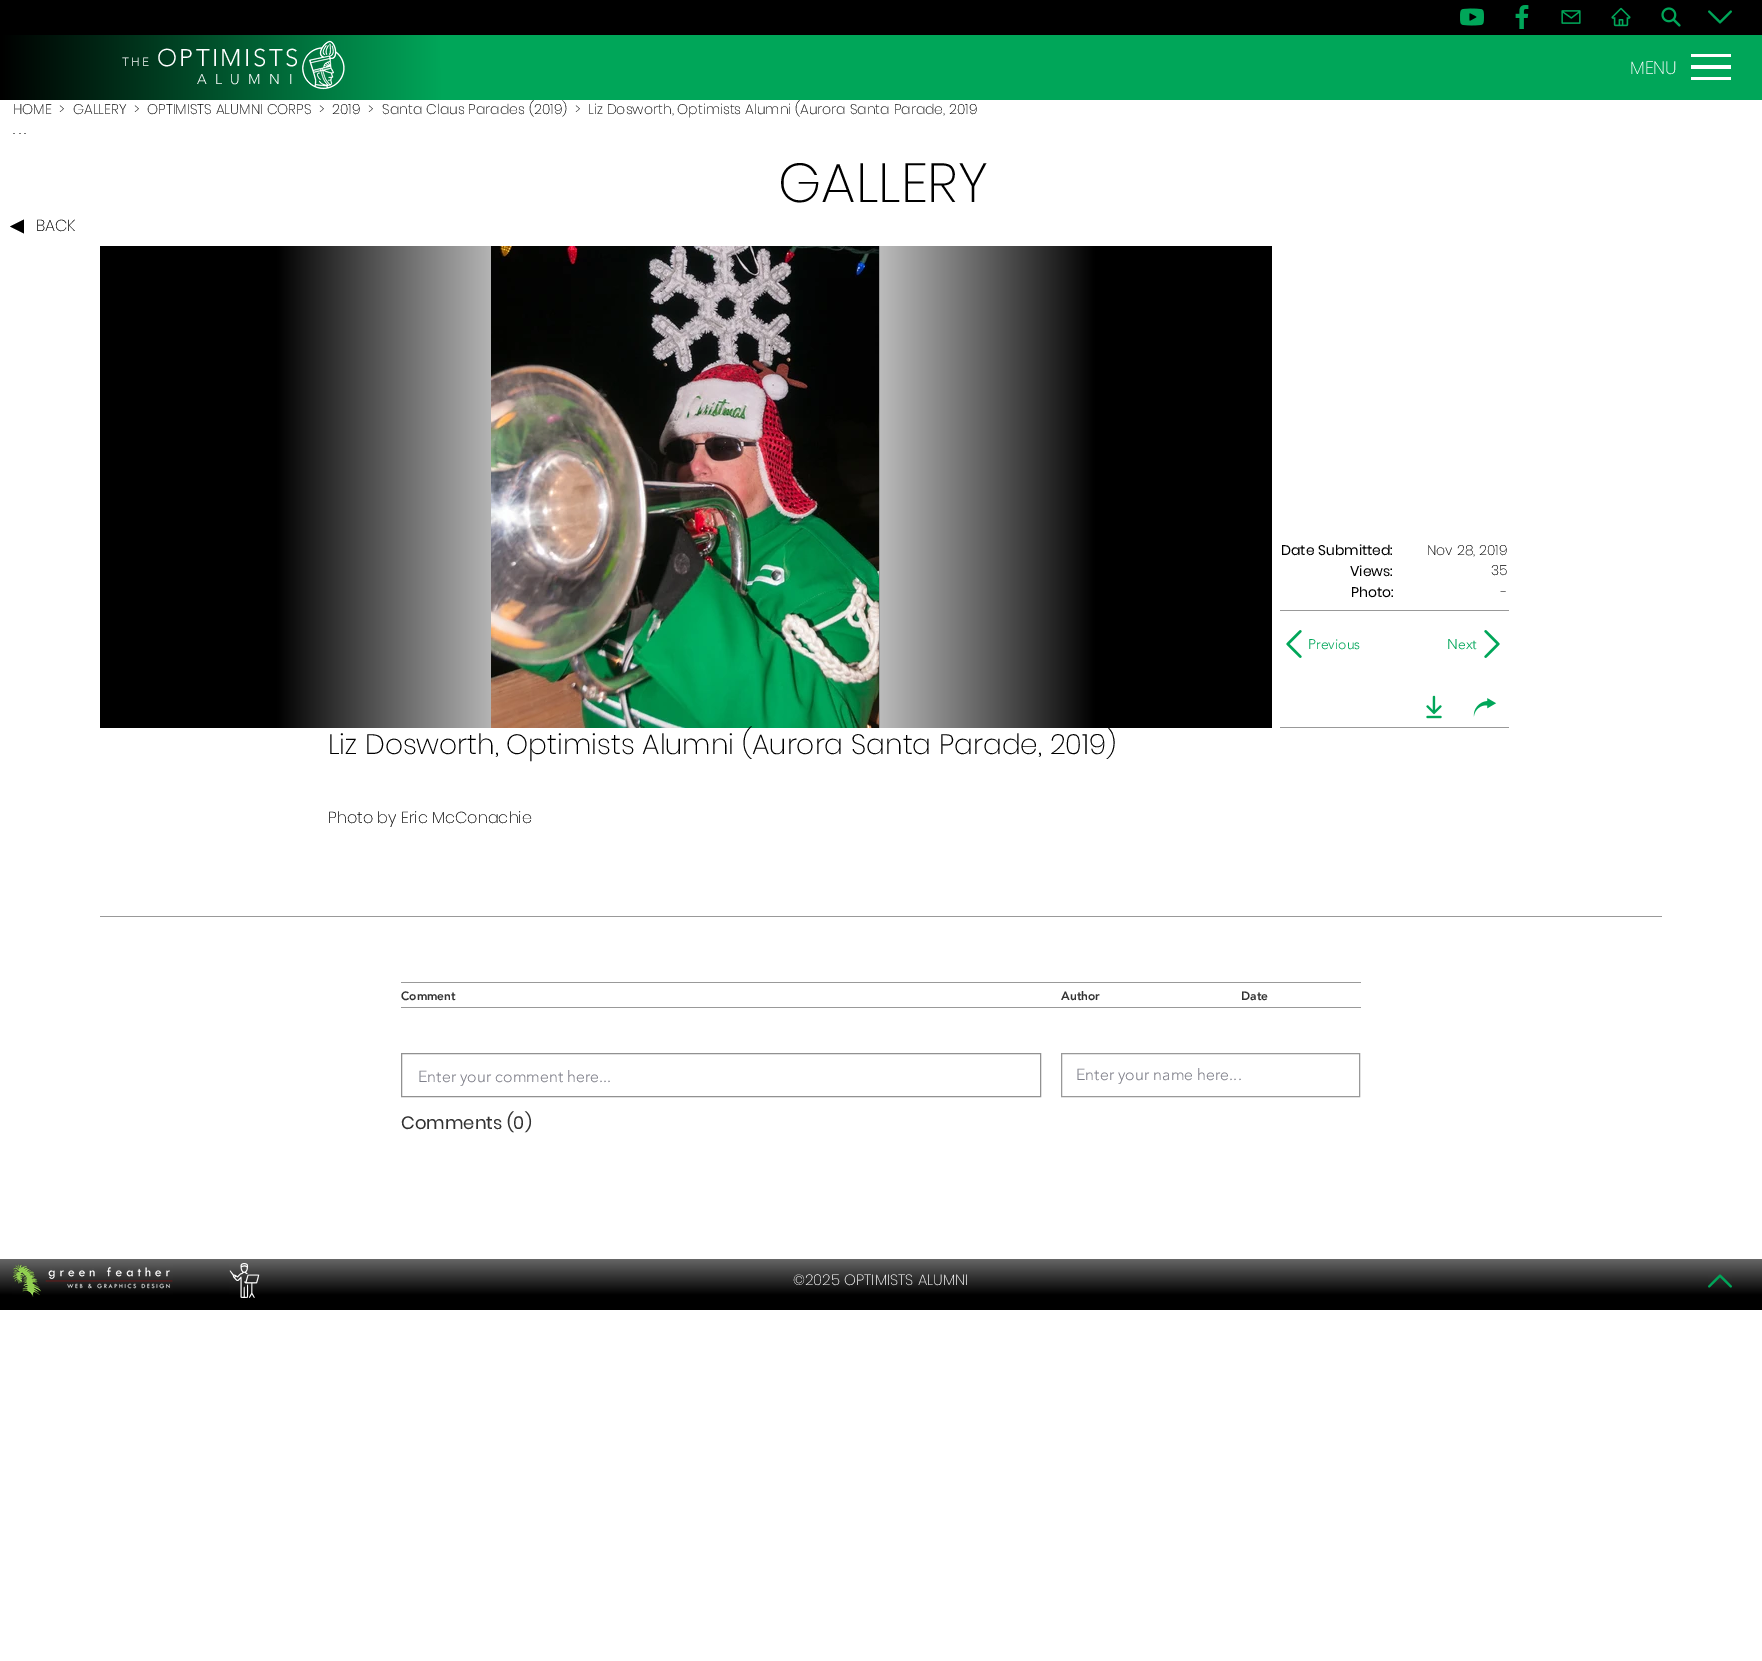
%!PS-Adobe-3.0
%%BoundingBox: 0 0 1762 1661
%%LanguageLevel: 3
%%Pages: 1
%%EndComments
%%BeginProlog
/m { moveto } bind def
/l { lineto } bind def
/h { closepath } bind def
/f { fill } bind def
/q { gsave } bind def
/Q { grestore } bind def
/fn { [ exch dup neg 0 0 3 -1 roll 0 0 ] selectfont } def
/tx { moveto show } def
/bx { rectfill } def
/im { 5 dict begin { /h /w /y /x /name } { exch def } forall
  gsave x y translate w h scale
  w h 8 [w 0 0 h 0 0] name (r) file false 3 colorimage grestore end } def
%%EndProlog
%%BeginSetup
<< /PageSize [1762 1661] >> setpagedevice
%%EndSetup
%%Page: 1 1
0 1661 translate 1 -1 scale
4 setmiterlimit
1 setgray
0 0 1762 1661 bx
0 setgray
0 0 1762 35 bx
(image0.raw) 1460 8 24 18 im
(image1.raw) 1515 5 14 24 im
(image2.raw) 1561 10 20 14 im
(image3.raw) 1611 7 20 20 im
(image4.raw) 1661 7 20 20 im
(image5.raw) 1708 10 24 14 im
0 0.651 0.349 setrgbcolor
441 35 1321 65 bx
q 0 35 m 441 35 l 441 100 l 0 100 l h clip newpath
<< /ShadingType 2 /ColorSpace /DeviceRGB /Coords [0 68 441 67] /Extend [true true] /Function << /FunctionType 2 /Domain [0 1] /C0 [0 0 0] /C1 [0 0.651 0.349] /N 1 >> >> shfill Q
/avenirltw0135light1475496-Light 12 fn
1 setgray
122 66 m 2.4 0 (THE) ashow
/avenirltw0135light1475496-Light 24 fn
157 66 m 2.4 0 (OPTIMISTS) ashow
/avenirltw0135light1475496-Light 14 fn
197 84 m 2.4 0 (A L U M N I) ashow
(image6.raw) 302 40 43 50 im
/Poppins-ExtraLight 18 fn
(MENU) 1630 74 tx
1691 77 40 3 bx
1691 54 40 3 bx
1691 65 40 4 bx
/Poppins-ExtraLight 14 fn
0 setgray
(HOME) 13 114 tx
(>) 59 114 tx
(GALLERY) 73 114 tx
(>) 134 114 tx
(OPTIMISTS ALUMNI CORPS) 147 114 tx
(>) 319 114 tx
(2019) 332 114 tx
(>) 368 114 tx
(Santa Claus Parades \(2019\)) 382 114 tx
(>  Liz Dosworth, Optimists Alumni \(Aurora Santa Parade, 2019) 575 114 tx
(. . .) 13 134 tx
/Poppins-ExtraLight 55 fn
(GALLERY) 778 202 tx
24 233.5 m 10 226.5 l 24 219.5 l h f
/Poppins-ExtraLight 16 fn
(BACK) 36 231 tx
q 100 246 m 1272 246 l 1272 728 l 100 728 l h clip newpath
<< /ShadingType 2 /ColorSpace /DeviceRGB /Coords [100 487 1272 487] /Extend [true true] /Function << /FunctionType 3 /Domain [0 1] /Functions [<< /FunctionType 2 /Domain [0 1] /C0 [0 0 0] /C1 [0 0 0] /N 1 >> << /FunctionType 2 /Domain [0 1] /C0 [0 0 0] /C1 [1 1 1] /N 1 >> << /FunctionType 2 /Domain [0 1] /C0 [1 1 1] /C1 [1 1 1] /N 1 >> << /FunctionType 2 /Domain [0 1] /C0 [1 1 1] /C1 [0 0 0] /N 1 >> << /FunctionType 2 /Domain [0 1] /C0 [0 0 0] /C1 [0 0 0] /N 1 >>] /Bounds [0.15 0.41 0.6 0.85] /Encode [0 1 0 1 0 1 0 1 0 1] >> >> shfill Q
0.6 setgray
879 246 1 482 bx
(image7.raw) 491 246 388 482 im
/Poppins-Regular 14 fn
0 setgray
(Date Submitted:) 1281 555 tx
/Poppins-ExtraLight 14 fn
(Nov 28, 2019) 1427 555 tx
/Poppins-Regular 14 fn
(Views:) 1350 576 tx
/Poppins-ExtraLight 14 fn
(35) 1491 575 tx
/Poppins-Regular 14 fn
(Photo:) 1351 597 tx
/Poppins-ExtraLight 14 fn
(-) 1501 597 tx
0.6 setgray
1280 610 229 1 bx
(image8.raw) 1286 630 16 28 im
/avenirltw0135light1475496-Light 14 fn
0 0.651 0.349 setrgbcolor
(Previous) 1308 649 tx
(Next) 1447 649 tx
(image9.raw) 1484 630 16 28 im
(image10.raw) 1426 695 16 24 im
(image11.raw) 1473 698 24 19 im
0.6 setgray
1280 727 229 1 bx
/Poppins-ExtraLight 28 fn
0 setgray
(Liz Dosworth, Optimists Alumni \(Aurora Santa Parade, 2019\)) 328 754 tx
/Poppins-ExtraLight 16 fn
(Photo by Eric McConachie) 328 823 tx
0.6 setgray
100 916 1562 1 bx
401 982 960 1 bx
/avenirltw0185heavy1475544-Black 12 fn
0.2 setgray
(Comment) 401 1000 tx
(Author) 1061 1000 tx
(Date) 1241 1000 tx
0.6 setgray
401 1007 960 1 bx
0.569 setgray
401.5 1053.5 639 43 rectstroke
/avenirltw0135light1475496-Light 16 fn
0.498 0.502 0.541 setrgbcolor
(Enter your comment here...) 418 1082 tx
0.6 setgray
1061.5 1053.5 298 43 rectstroke
0.498 0.502 0.541 setrgbcolor
(Enter your name here...) 1076 1080 tx
/Poppins-Regular 18 fn
0.2 setgray
(Comments \(0\)) 401 1129 tx
q 0 1259 m 1762 1259 l 1762 1310 l 0 1310 l h clip newpath
<< /ShadingType 2 /ColorSpace /DeviceRGB /Coords [881 1310 881 1259] /Extend [true true] /Function << /FunctionType 3 /Domain [0 1] /Functions [<< /FunctionType 2 /Domain [0 1] /C0 [0 0 0] /C1 [0 0 0] /N 1 >> << /FunctionType 2 /Domain [0 1] /C0 [0 0 0] /C1 [0.4 0.4 0.4] /N 1 >>] /Bounds [0.29] /Encode [0 1 0 1] >> >> shfill Q
(image12.raw) 12 1264 161 33 im
(image13.raw) 229 1263 31 35 im
/Poppins-ExtraLight 15 fn
1 setgray
(©2025 OPTIMISTS ALUMNI) 793 1285 tx
(image14.raw) 1708 1274 24 14 im
showpage
%%EOF
